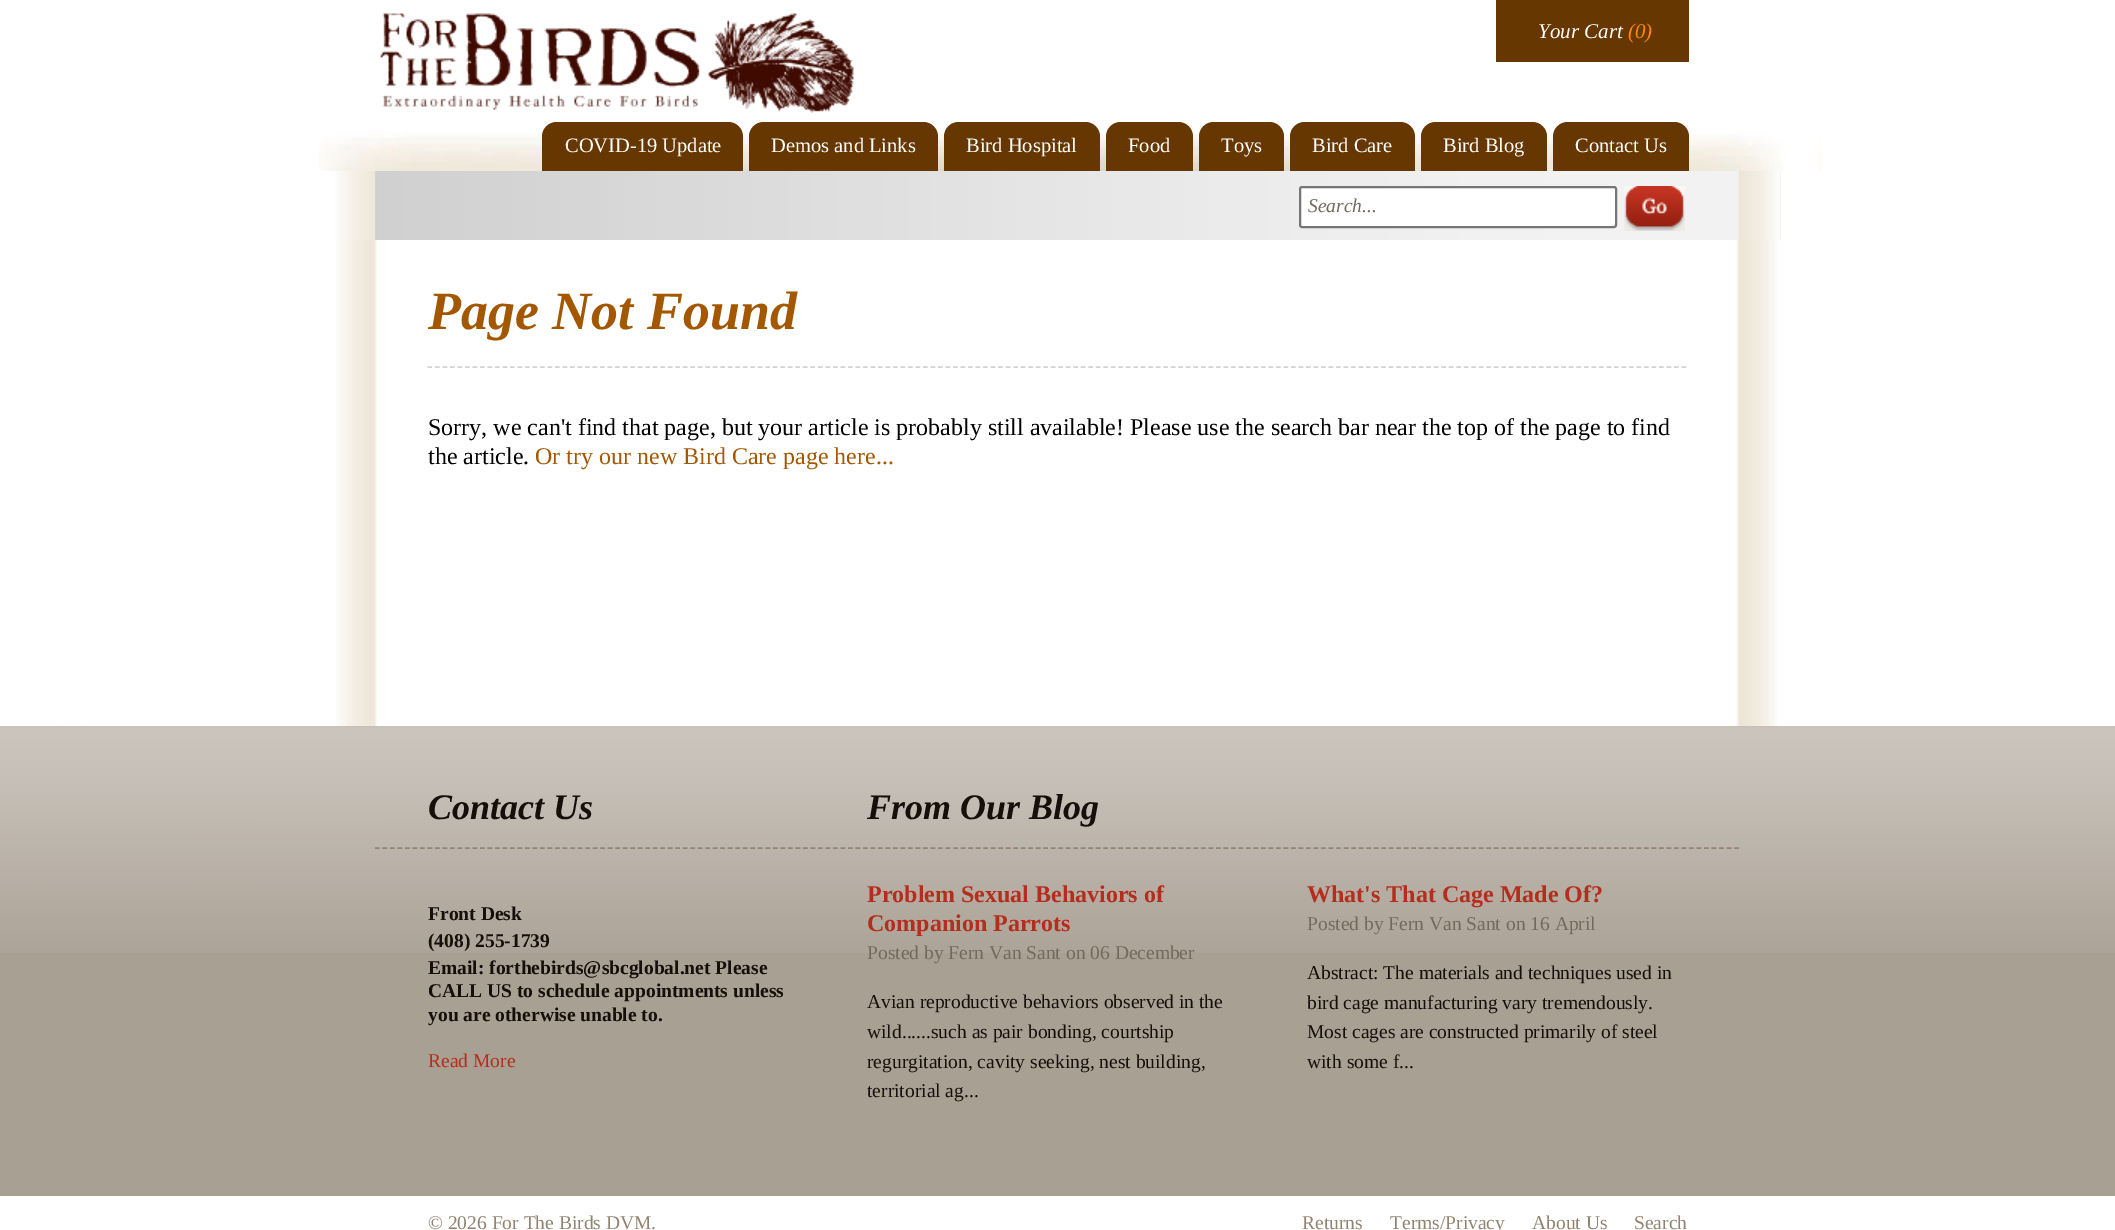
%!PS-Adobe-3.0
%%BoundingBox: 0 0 2115 1230
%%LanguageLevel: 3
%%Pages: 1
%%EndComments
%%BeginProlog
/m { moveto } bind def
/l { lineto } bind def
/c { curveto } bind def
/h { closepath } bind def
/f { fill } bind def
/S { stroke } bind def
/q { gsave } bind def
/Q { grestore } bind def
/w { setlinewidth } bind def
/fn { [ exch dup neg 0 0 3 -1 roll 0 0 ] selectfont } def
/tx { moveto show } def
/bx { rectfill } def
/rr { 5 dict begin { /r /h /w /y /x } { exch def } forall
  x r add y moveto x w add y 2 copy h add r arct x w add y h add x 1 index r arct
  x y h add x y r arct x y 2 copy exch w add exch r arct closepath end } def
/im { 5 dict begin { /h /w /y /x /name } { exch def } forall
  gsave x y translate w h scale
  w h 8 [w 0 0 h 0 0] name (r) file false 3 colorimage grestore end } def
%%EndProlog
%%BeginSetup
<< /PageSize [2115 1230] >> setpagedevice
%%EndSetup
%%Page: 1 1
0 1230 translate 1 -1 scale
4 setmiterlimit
1 setgray
0 0 2115 1230 bx
(image0.raw) 379 13 475 100 im
(image1.raw) 319 132 1502 39 im
0.4 0.216 0 setrgbcolor
1496 0 193 62 bx
/LiberationSerif-Italic 21 fn
1 setgray
(Your Cart) 1538 38 tx
1 0.533 0 setrgbcolor
(\(0\)) 1628 38 tx
0.4 0.216 0 setrgbcolor
557 122 m 728 122 l 736.5 122 743 128.5 743 137 c 743 171 l 542 171 l 542 137 l 542 128.5 548.5 122 557 122 c h f
/LiberationSerif-Regular 20.5 fn
1 setgray
(COVID-19 Update) 565 152 tx
0.4 0.216 0 setrgbcolor
764 122 m 923 122 l 931.5 122 938 128.5 938 137 c 938 171 l 749 171 l 749 137 l 749 128.5 755.5 122 764 122 c h f
1 setgray
(Demos and Links) 771 152 tx
0.4 0.216 0 setrgbcolor
959 122 m 1085 122 l 1093.5 122 1100 128.5 1100 137 c 1100 171 l 944 171 l 944 137 l 944 128.5 950.5 122 959 122 c h f
1 setgray
(Bird Hospital) 966 152 tx
0.4 0.216 0 setrgbcolor
1121 122 m 1178 122 l 1186.5 122 1193 128.5 1193 137 c 1193 171 l 1106 171 l 1106 137 l 1106 128.5 1112.5 122 1121 122 c h f
1 setgray
(Food) 1128 152 tx
0.4 0.216 0 setrgbcolor
1214 122 m 1269 122 l 1277.5 122 1284 128.5 1284 137 c 1284 171 l 1199 171 l 1199 137 l 1199 128.5 1205.5 122 1214 122 c h f
1 setgray
(Toys) 1221 152 tx
0.4 0.216 0 setrgbcolor
1305 122 m 1400 122 l 1408.5 122 1415 128.5 1415 137 c 1415 171 l 1290 171 l 1290 137 l 1290 128.5 1296.5 122 1305 122 c h f
1 setgray
(Bird Care) 1312 152 tx
0.4 0.216 0 setrgbcolor
1436 122 m 1532 122 l 1540.5 122 1547 128.5 1547 137 c 1547 171 l 1421 171 l 1421 137 l 1421 128.5 1427.5 122 1436 122 c h f
1 setgray
(Bird Blog) 1443 152 tx
0.4 0.216 0 setrgbcolor
1568 122 m 1674 122 l 1682.5 122 1689 128.5 1689 137 c 1689 171 l 1553 171 l 1553 137 l 1553 128.5 1559.5 122 1568 122 c h f
1 setgray
(Contact Us) 1575 152 tx
0.937 0.902 0.843 setrgbcolor
1780 171 1 69 bx
(image2.raw) 308 171 1473 69 im
1 setgray
1300 187 316 40 2 rr q f Q
0.463 setgray
2 w
S
/LiberationSerif-Italic 19.5 fn
0.455 0.412 0.365 setrgbcolor
(Search...) 1308 212 tx
(image3.raw) 1624 186 61 45 im
(image4.raw) 336 240 1441 486 im
0.835 0.824 0.816 setrgbcolor
1.5 w
[4.5 3.01] 0 setdash
427.5 367 m 1687.5 367 l S
/LiberationSerif-BoldItalic 54 fn
0.639 0.341 0 setrgbcolor
(Page Not Found) 428 329 tx
/LiberationSerif-Regular 24 fn
0 setgray
(Sorry, we can't find that page, but your article is probably still available! Please use the search bar near the top of the page to find) 428 435 tx
(the article.) 428 464 tx
0.639 0.341 0 setrgbcolor
(Or try our new Bird Care page here...) 535 464 tx
0.663 0.627 0.58 setrgbcolor
0 953 2115 243 bx
(image5.raw) 0 726 2115 227 im
0.576 0.518 0.439 setrgbcolor
375 848 m 1740 848 l S
/LiberationSerif-BoldItalic 36 fn
0.086 0.055 0.035 setrgbcolor
(Contact Us) 428 819 tx
(From Our Blog) 867 819 tx
/LiberationSerif-Bold 19.5 fn
(Front Desk) 428 920 tx
(\(408\) 255-1739) 428 947 tx
(Email: forthebirds@sbcglobal.net Please) 428 974 tx
(CALL US to schedule appointments unless) 428 997 tx
(you are otherwise unable to.) 428 1021 tx
/LiberationSerif-Regular 19.5 fn
0.71 0.176 0.114 setrgbcolor
(Read More) 428 1067 tx
/LiberationSerif-Bold 24 fn
(Problem Sexual Behaviors of) 867 902 tx
(Companion Parrots) 867 931 tx
/LiberationSerif-Regular 19.5 fn
0.455 0.412 0.365 setrgbcolor
(Posted by Fern Van Sant on 06 December) 867 959 tx
0.086 0.055 0.035 setrgbcolor
(Avian reproductive behaviors observed in the) 867 1008 tx
(wild......such as pair bonding, courtship) 867 1038 tx
(regurgitation, cavity seeking, nest building,) 867 1068 tx
(territorial ag...) 867 1097 tx
/LiberationSerif-Bold 24 fn
0.71 0.176 0.114 setrgbcolor
(What's That Cage Made Of?) 1307 902 tx
/LiberationSerif-Regular 19.5 fn
0.455 0.412 0.365 setrgbcolor
(Posted by Fern Van Sant on 16 April) 1307 930 tx
0.086 0.055 0.035 setrgbcolor
(Abstract: The materials and techniques used in) 1307 979 tx
(bird cage manufacturing vary tremendously.) 1307 1009 tx
(Most cages are constructed primarily of steel) 1307 1038 tx
(with some f...) 1307 1068 tx
0.573 0.514 0.439 setrgbcolor
(© 2026 For The Birds DVM.) 428 1229 tx
(Returns) 1302 1229 tx
(Terms/Privacy) 1390 1229 tx
(About Us) 1532 1229 tx
(Search) 1634 1229 tx
showpage
%%EOF
